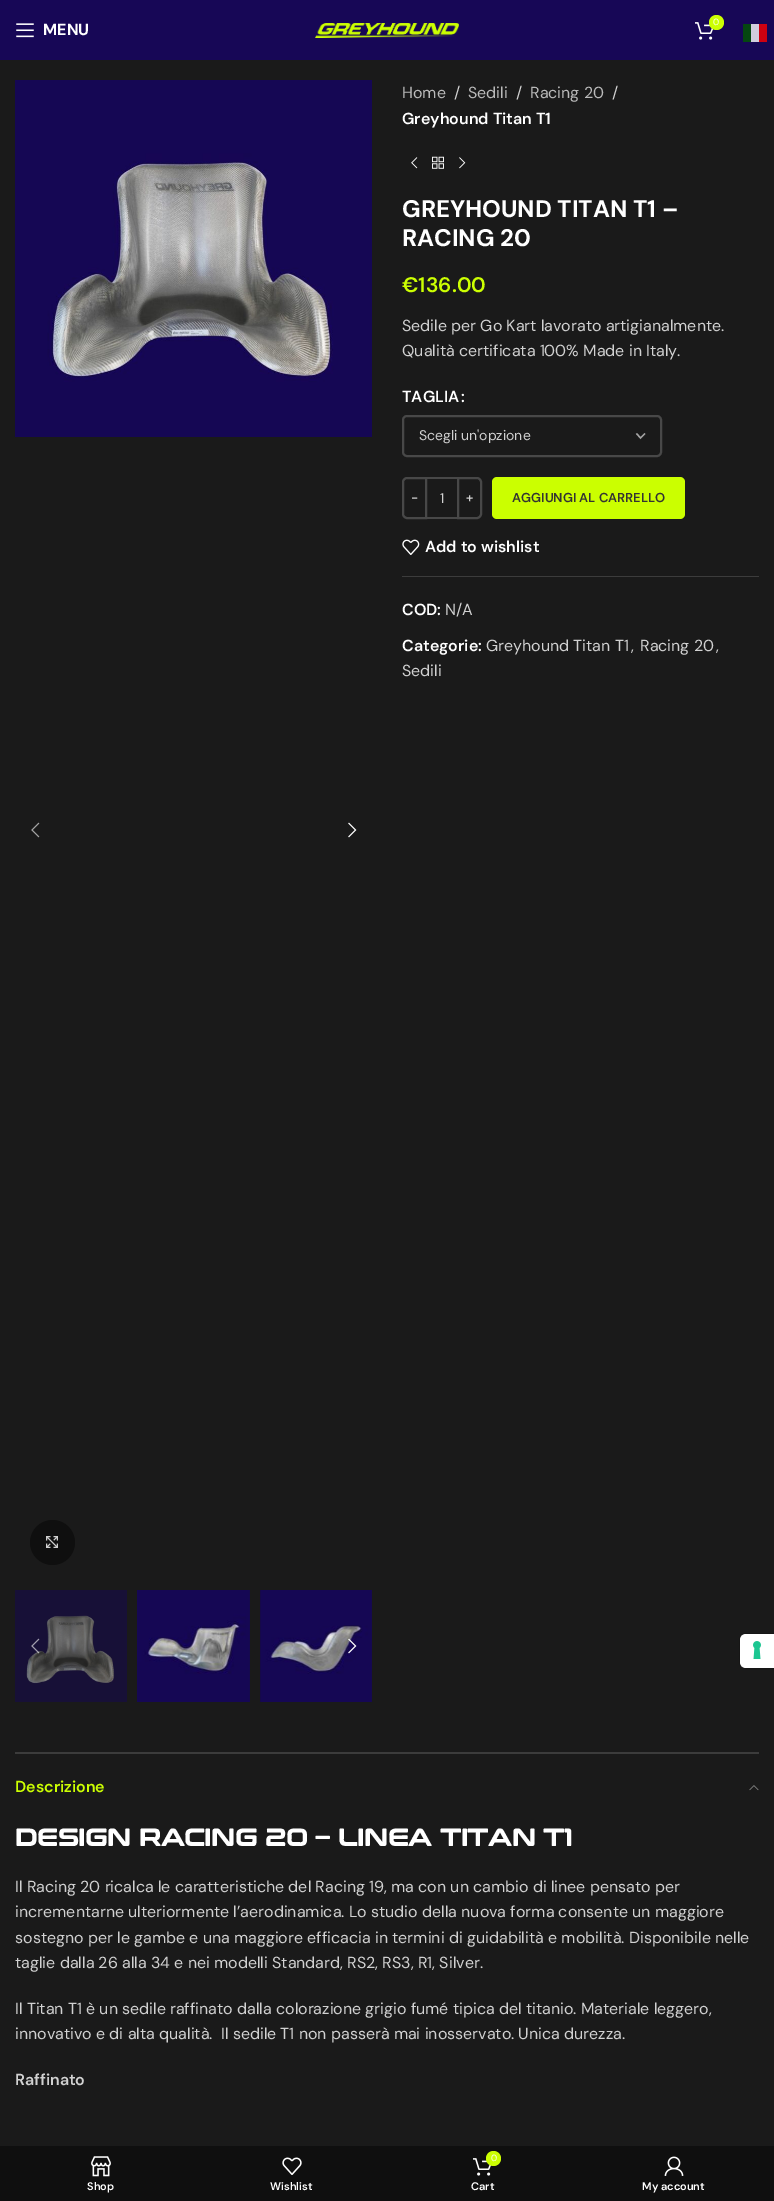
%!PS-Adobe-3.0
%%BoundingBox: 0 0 774 2201
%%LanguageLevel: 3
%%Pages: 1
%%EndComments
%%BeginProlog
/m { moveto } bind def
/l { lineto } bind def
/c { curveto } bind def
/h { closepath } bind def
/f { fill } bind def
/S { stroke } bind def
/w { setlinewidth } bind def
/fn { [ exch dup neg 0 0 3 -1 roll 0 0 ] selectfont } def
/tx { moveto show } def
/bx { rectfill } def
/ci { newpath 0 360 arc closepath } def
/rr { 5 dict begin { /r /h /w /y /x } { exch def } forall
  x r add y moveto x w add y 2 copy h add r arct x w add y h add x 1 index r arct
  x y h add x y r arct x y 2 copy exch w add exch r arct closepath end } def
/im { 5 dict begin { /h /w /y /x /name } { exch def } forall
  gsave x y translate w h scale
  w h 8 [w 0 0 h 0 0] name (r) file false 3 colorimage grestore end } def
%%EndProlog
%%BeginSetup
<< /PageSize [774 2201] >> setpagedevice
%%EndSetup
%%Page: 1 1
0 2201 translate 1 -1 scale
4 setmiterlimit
0.102 setgray
0 0 774 2201 bx
0.09 0.027 0.337 setrgbcolor
0 0 774 60 bx
(image0.raw) 695 22 19 18 im
0.8 1 0.008 setrgbcolor
716.5 22.5 7.5 ci f
/DMSans-Regular 9 fn
1 setgray
(0) 713 25 tx
0.02 0.278 0.067 setrgbcolor
743 24 8 18 bx
0.82 0.804 0.867 setrgbcolor
751 24 8 18 bx
0.808 0.004 0.067 setrgbcolor
759 24 8 18 bx
(image1.raw) 16 23 18 15 im
/DMSans-Bold 16 fn
1 setgray
(MENU) 43 35 tx
(image2.raw) 315 23 144 15 im
(image3.raw) 15 80 357 357 im
(image4.raw) 31 822 9 16 im
(image5.raw) 348 822 9 16 im
0.059 setgray
52.5 1542.5 22.5 ci f
(image6.raw) 46 1536 12 12 im
(image7.raw) 15 1590 112 112 im
(image8.raw) 137 1590 113 112 im
(image9.raw) 260 1590 112 112 im
(image10.raw) 31 1638 9 16 im
(image11.raw) 348 1638 9 16 im
/DMSans-Regular 16 fn
0.729 setgray
(Home) 402 98 tx
0.82 setgray
(/) 454 98 tx
0.729 setgray
(Sedili) 468 98 tx
0.82 setgray
(/) 516 98 tx
0.729 setgray
(Racing 20) 530 98 tx
0.82 setgray
(/) 612 98 tx
/DMSans-SemiBold 16 fn
1 setgray
(Greyhound Titan T1) 402 124 tx
(image12.raw) 411 157 7 12 im
(image13.raw) 432 156 12 13 im
(image14.raw) 459 157 7 12 im
/DMSans-Bold 24 fn
(GREYHOUND TITAN T1 –) 402 217 tx
(RACING 20) 402 246 tx
/DMSans-SemiBold 21 fn
0.8 1 0.008 setrgbcolor
(€136.00) 402 292 tx
/DMSans-Regular 16 fn
0.82 setgray
(Sedile per Go Kart lavorato artigianalmente.) 402 331 tx
(Qualità certificata 100% Made in Italy.) 402 356 tx
/DMSans-SemiBold 16 fn
1 setgray
(TAGLIA) 402 402 tx
(:) 461 402 tx
0.639 setgray
1.4 w
636.5 433.5 m 640.5 438 l 645 433.5 l S
0.282 setgray
2 w
403 416 258 40 4 rr S
/DMSans-Regular 14 fn
0.82 setgray
(Scegli un'opzione) 419 440 tx
0.282 setgray
407 478 m 426 478 l 426 518 l 407 518 l 405 518 403 516 403 514 c 403 482 l 403 480 405 478 407 478 c h S
/DMSans-SemiBold 13 fn
0.82 setgray
(-) 411 502 tx
0.282 setgray
427 477 30 2 bx
427 517 30 2 bx
/DMSans-Regular 14 fn
0.82 setgray
(1) 440 503 tx
0.282 setgray
458 478 m 477 478 l 479 478 481 480 481 482 c 481 514 l 481 516 479 518 477 518 c 458 518 l h S
/DMSans-SemiBold 13 fn
0.82 setgray
(+) 466 502 tx
0.796 1 0 setrgbcolor
492 477 193 42 5 rr f
0.2 setgray
(AGGIUNGI AL CARRELLO) 512 502 tx
(image15.raw) 402 539 18 16 im
/DMSans-SemiBold 16 fn
1 setgray
(Add to wishlist) 425 552 tx
0.235 setgray
402 576 357 1 bx
1 setgray
(COD:) 402 615 tx
/DMSans-Regular 16 fn
0.82 setgray
(N/A) 445 615 tx
/DMSans-SemiBold 16 fn
1 setgray
(Categorie:) 402 651 tx
/DMSans-Regular 16 fn
0.82 setgray
(Greyhound Titan T1) 486 651 tx
(,) 631 651 tx
(Racing 20) 640 651 tx
(,) 716 651 tx
(Sedili) 402 676 tx
0.235 setgray
15 1752 744 2 bx
/DMSans-SemiBold 16 fn
0.8 1 0.008 setrgbcolor
(Descrizione) 15 1792 tx
(image16.raw) 749 1785 10 6 im
/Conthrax-Bold 24 fn
1 setgray
(DESIGN RACING 20 – LINEA TITAN T1) 15 1846 tx
/DMSans-Regular 16 fn
0.82 setgray
(Il Racing 20 ricalca le caratteristiche del Racing 19, ma con un cambio di linee pensato per) 15 1892 tx
(incrementarne ulteriormente l’aerodinamica. Lo studio della nuova forma consente un maggiore) 15 1917 tx
(sostegno per le gambe e una maggiore efficacia in termini di guidabilità e mobilità. Disponibile nelle) 15 1943 tx
(taglie dalla 26 alla 34 e nei modelli Standard, RS2, RS3, R1, Silver.) 15 1968 tx
(Il Titan T1 è un sedile raffinato dalla colorazione grigio fumé tipica del titanio. Materiale leggero,) 15 2014 tx
(innovativo e di alta qualità.  Il sedile T1 non passerà mai inosservato. Unica durezza.) 15 2039 tx
/DMSans-SemiBold 16 fn
(Raffinato) 15 2085 tx
0.086 setgray
1 w
746 1633.5 m 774.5 1633.5 l 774.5 1668.5 l 746 1668.5 l 742.5 1668.5 739.5 1665.5 739.5 1662 c 739.5 1640 l 739.5 1636.5 742.5 1633.5 746 1633.5 c h S
1 setgray
746 1634 m 774 1634 l 774 1668 l 746 1668 l 742.5 1668 740 1665.5 740 1662 c 740 1640 l 740 1636.5 742.5 1634 746 1634 c h f
(image17.raw) 753 1641 8 18 im
0.059 setgray
0 2146 774 55 bx
(image18.raw) 91 2156 20 21 im
/DMSans-SemiBold 11 fn
1 setgray
(Shop) 87 2190 tx
(image19.raw) 282 2157 20 18 im
(Wishlist) 270 2190 tx
(image20.raw) 473 2158 19 18 im
0.8 1 0.008 setrgbcolor
493.5 2158.5 7.5 ci f
/DMSans-Regular 9 fn
1 setgray
(0) 491 2161 tx
/DMSans-SemiBold 11 fn
(Cart) 471 2190 tx
(image21.raw) 664 2156 20 20 im
(My account) 642 2190 tx
showpage
%%EOF
